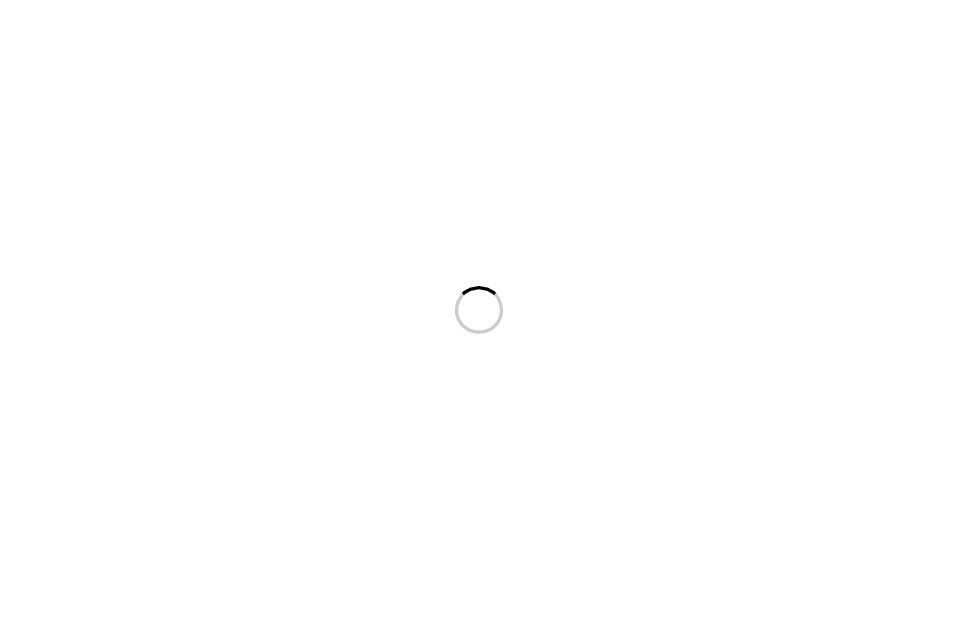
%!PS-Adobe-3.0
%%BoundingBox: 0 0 958 619
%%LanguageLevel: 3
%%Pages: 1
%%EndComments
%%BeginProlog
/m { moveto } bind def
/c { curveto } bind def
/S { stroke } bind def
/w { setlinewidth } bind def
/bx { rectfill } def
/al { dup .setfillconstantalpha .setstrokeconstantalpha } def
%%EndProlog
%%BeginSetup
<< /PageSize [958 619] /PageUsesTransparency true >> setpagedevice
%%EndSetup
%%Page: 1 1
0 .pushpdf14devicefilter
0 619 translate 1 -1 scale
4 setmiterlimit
1 setgray
0 0 958 619 bx
0.008 setgray
3 w
463 294 m 472 285.5 486 285.5 495 294 c S
0.2 al
495 294 m 500 299.5 502.5 307 501 314.5 c 496 340.5 456.5 337 456.5 310 c 456.5 304 459 298.5 463 294 c S
.poppdf14devicefilter showpage
%%EOF
